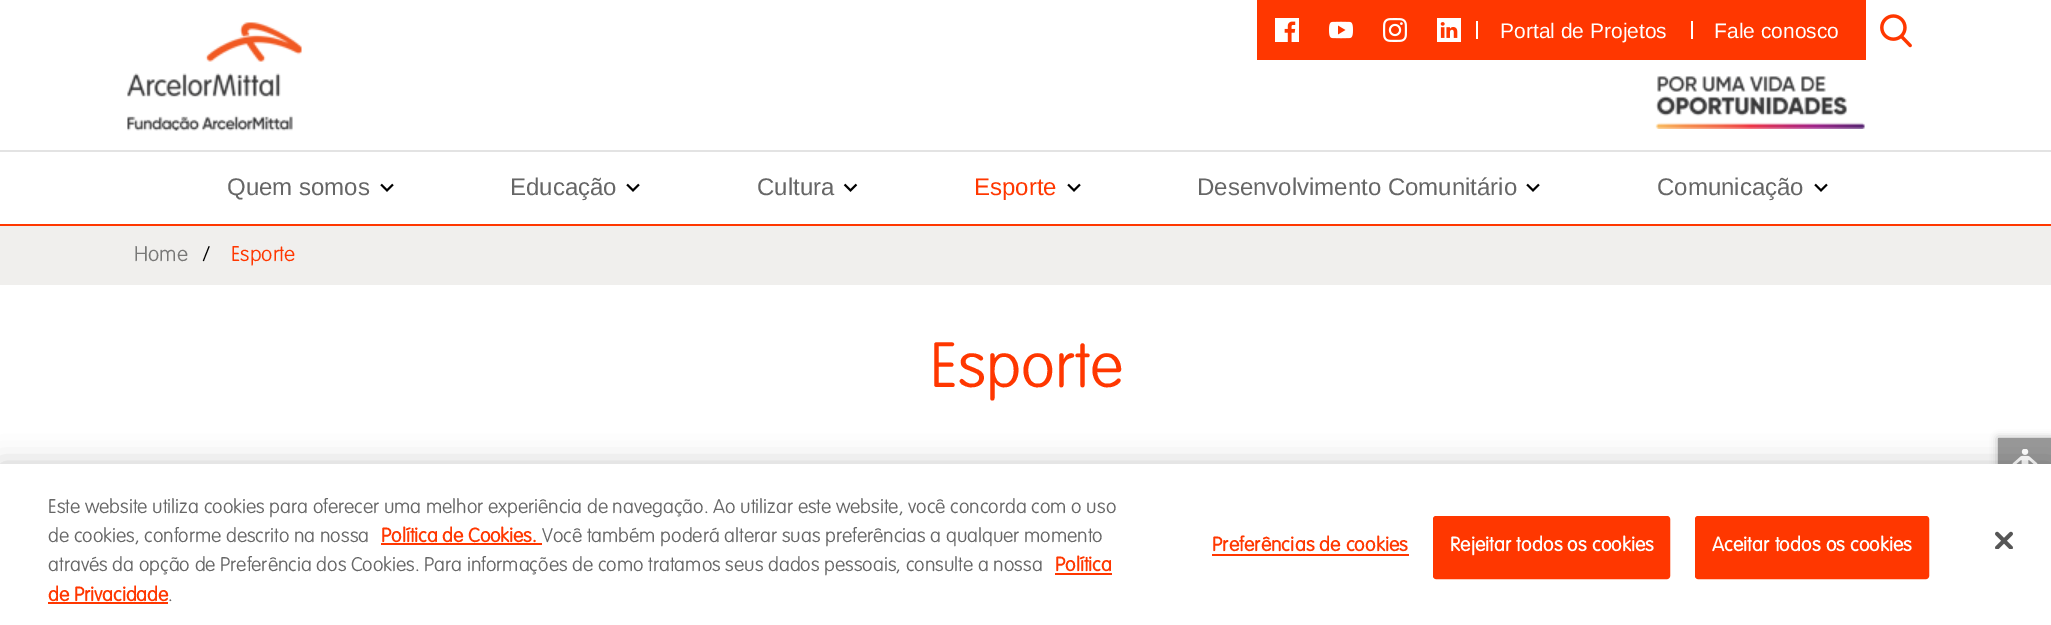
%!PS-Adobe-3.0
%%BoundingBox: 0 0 2051 625
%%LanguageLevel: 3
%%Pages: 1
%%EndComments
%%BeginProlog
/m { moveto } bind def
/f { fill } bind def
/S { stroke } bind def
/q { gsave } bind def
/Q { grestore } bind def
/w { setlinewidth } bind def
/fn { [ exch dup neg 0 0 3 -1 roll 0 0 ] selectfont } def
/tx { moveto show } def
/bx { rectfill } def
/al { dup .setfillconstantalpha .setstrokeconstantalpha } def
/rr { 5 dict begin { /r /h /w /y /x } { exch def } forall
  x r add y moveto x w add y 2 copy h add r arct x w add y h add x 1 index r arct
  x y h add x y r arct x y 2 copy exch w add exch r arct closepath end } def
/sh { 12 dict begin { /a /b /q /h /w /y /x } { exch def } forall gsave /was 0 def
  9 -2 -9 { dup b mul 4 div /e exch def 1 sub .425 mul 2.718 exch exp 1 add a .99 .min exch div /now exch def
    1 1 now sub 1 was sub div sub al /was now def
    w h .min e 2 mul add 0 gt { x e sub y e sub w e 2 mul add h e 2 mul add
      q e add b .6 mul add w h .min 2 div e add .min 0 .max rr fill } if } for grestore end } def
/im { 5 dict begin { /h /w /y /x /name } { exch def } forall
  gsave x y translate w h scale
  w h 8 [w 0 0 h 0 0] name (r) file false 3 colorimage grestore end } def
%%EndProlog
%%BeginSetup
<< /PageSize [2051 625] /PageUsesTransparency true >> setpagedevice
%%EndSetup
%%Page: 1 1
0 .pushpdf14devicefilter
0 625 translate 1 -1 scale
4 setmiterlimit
1 setgray
0 0 2051 625 bx
(image0.raw) 127 22 175 109 im
1 0.216 0 setrgbcolor
1257 0 609 60 bx
(image1.raw) 1275 18 24 24 im
(image2.raw) 1329 21 24 18 im
(image3.raw) 1383 18 24 24 im
(image4.raw) 1437 18 24 24 im
1 setgray
1476 21 2 18 bx
/LiberationSans-Regular 21 fn
(Portal de Projetos) 1500 38 tx
1691 21 2 18 bx
(Fale conosco) 1714 38 tx
(image5.raw) 1880 14 32 34 im
(image6.raw) 1655 76 210 53 im
0.89 setgray
0 150 2051 2 bx
1 0.216 0 setrgbcolor
0 224 2051 2 bx
/LiberationSans-Regular 24 fn
0.4 setgray
(Quem somos) 227 195 tx
(image7.raw) 380 183 14 9 im
(Educação) 510 195 tx
(image7.raw) 626 183 14 9 im
(Cultura) 757 195 tx
(image8.raw) 843 183 15 9 im
1 0.216 0 setrgbcolor
(Esporte) 974 195 tx
(image7.raw) 1067 183 14 9 im
0.4 setgray
(Desenvolvimento Comunitário) 1197 195 tx
(image7.raw) 1526 183 14 9 im
(Comunicação) 1657 195 tx
(image7.raw) 1814 183 14 9 im
0.941 0.937 0.929 setrgbcolor
0 226 2051 59 bx
/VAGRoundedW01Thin-Thin 21 fn
0.471 0.471 0.467 setrgbcolor
(Home) 134 261 tx
0 setgray
(/) 202 261 tx
1 0.216 0 setrgbcolor
(Esporte) 231 261 tx
/VAGRoundedW01Thin-Thin 63 fn
(Esporte) 930 387 tx
0 setgray
1998 438 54 108 0 4 0.3 sh
0.6 setgray
1998 438 53 26 bx
(image9.raw) 2012 449 26 15 im
0 setgray
0 464 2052 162 0 13.5 0.2 sh
1 setgray
0 464 2051 161 bx
/VAGRoundedW01Thin-Thin 19.5 fn
0.4 setgray
(Este website utiliza cookies para oferecer uma melhor experiência de navegação. Ao utilizar este website, você concorda com o uso) 48 513 tx
(de cookies, conforme descrito na nossa) 48 542 tx
/VAGRoundedW01Thin-Bold 19.5 fn
1 0.216 0 setrgbcolor
(Política de Cookies.) 381 542 tx
381 543 161 2 bx
/VAGRoundedW01Thin-Thin 19.5 fn
0.4 setgray
(Você também poderá alterar suas preferências a qualquer momento) 542 542 tx
(através da opção de Preferência dos Cookies. Para informações de como tratamos seus dados pessoais, consulte a nossa) 48 571 tx
/VAGRoundedW01Thin-Bold 19.5 fn
1 0.216 0 setrgbcolor
(Política) 1055 571 tx
1055 573 57 2 bx
(de Privacidade) 48 601 tx
48 602 120 2 bx
/VAGRoundedW01Thin-Thin 19.5 fn
0.4 setgray
(.) 168 601 tx
/VAGRoundedW01Thin-Bold 19.5 fn
1 0.216 0 setrgbcolor
1212 551 m 0.2 0 (Preferências de cookies) ashow
1212 554 197 2 bx
1434 517 235 61 2 rr q f Q
2 w
S
1 setgray
1450 551 m 0.2 0 (Rejeitar todos os cookies) ashow
1 0.216 0 setrgbcolor
1696 517 232 61 2 rr q f Q
S
1 setgray
1712 551 m 0.2 0 (Aceitar todos os cookies) ashow
(image10.raw) 1995 531 18 18 im
.poppdf14devicefilter showpage
%%EOF
